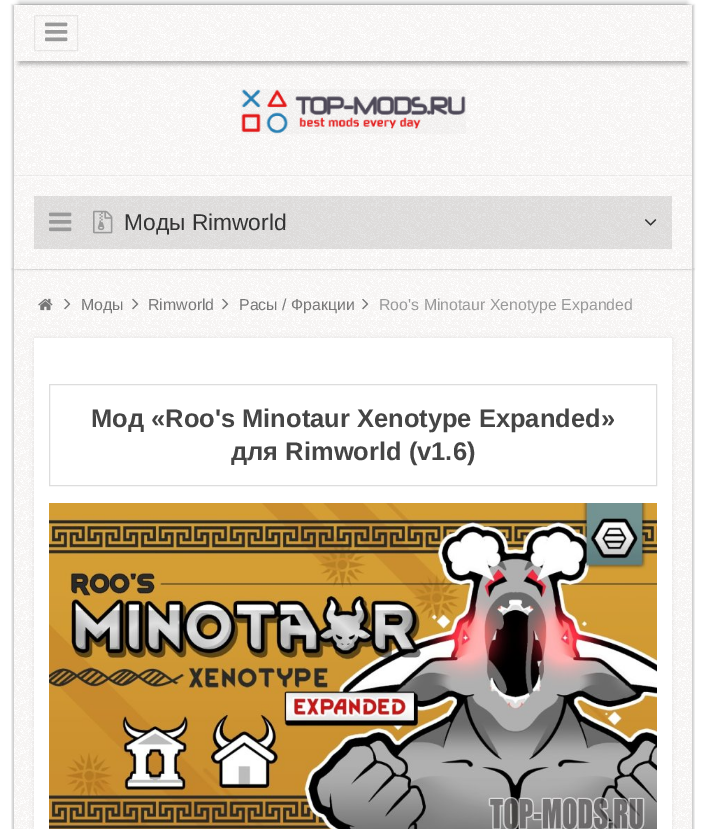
%!PS-Adobe-3.0
%%BoundingBox: 0 0 706 829
%%LanguageLevel: 3
%%Pages: 1
%%EndComments
%%BeginProlog
/q { gsave } bind def
/Q { grestore } bind def
/fn { [ exch dup neg 0 0 3 -1 roll 0 0 ] selectfont } def
/tx { moveto show } def
/bx { rectfill } def
/al { dup .setfillconstantalpha .setstrokeconstantalpha } def
/rr { 5 dict begin { /r /h /w /y /x } { exch def } forall
  x r add y moveto x w add y 2 copy h add r arct x w add y h add x 1 index r arct
  x y h add x y r arct x y 2 copy exch w add exch r arct closepath end } def
/sh { 12 dict begin { /a /b /q /h /w /y /x } { exch def } forall gsave /was 0 def
  9 -2 -9 { dup b mul 4 div /e exch def 1 sub .425 mul 2.718 exch exp 1 add a .99 .min exch div /now exch def
    1 1 now sub 1 was sub div sub al /was now def
    w h .min e 2 mul add 0 gt { x e sub y e sub w e 2 mul add h e 2 mul add
      q e add b .6 mul add w h .min 2 div e add .min 0 .max rr fill } if } for grestore end } def
/im { 5 dict begin { /h /w /y /x /name } { exch def } forall
  gsave x y translate w h scale
  w h 8 [w 0 0 h 0 0] name (r) file false 3 colorimage grestore end } def
%%EndProlog
%%BeginSetup
<< /PageSize [706 829] /PageUsesTransparency true >> setpagedevice
%%EndSetup
%%Page: 1 1
0 .pushpdf14devicefilter
0 829 translate 1 -1 scale
4 setmiterlimit
1 setgray
0 0 706 829 bx
q
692 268 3 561 rectclip
0 setgray
16 269 678 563 0 1 0.2 sh
Q
q
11 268 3 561 rectclip
0 setgray
12 269 678 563 0 1 0.2 sh
Q
(image6.raw) 14 269 678 560 im
0 setgray
16 5 678 264 0 1 0.2 sh
12 5 678 264 0 1 0.2 sh
19 2 668 254 0 2.5 0.2 sh
1 setgray
14 5 678 264 bx
(image0.raw) 14 5 678 264 im
q
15 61 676 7 rectclip
0 setgray
19 18 668 46 0 2.5 0.3 sh
Q
0.07 al
0 setgray
34.5 15.5 43 35 rectstroke
1 al
(image1.raw) 45 22 23 20 im
(image2.raw) 241 89 225 45 im
0.05 al
14 175 678 1 bx
0.3 al
1 setgray
14 176 678 2 bx
0.1 al
0 setgray
34 196 638 53 bx
1 al
(image3.raw) 49 212 23 20 im
(image4.raw) 93 210 20 24 im
/LiberationSans-Regular 22.75 fn
0.2 setgray
(Моды Rimworld) 124 230 tx
(image5.raw) 645 219 12 7 im
(image7.raw) 38 298 15 13 im
(image8.raw) 64 298 7 12 im
/LiberationSans-Regular 15.9 fn
0.467 setgray
(Моды) 81 310 tx
(image9.raw) 132 298 7 12 im
(Rimworld) 148 310 tx
(image10.raw) 222 298 7 12 im
(Расы / Фракции) 239 310 tx
(image11.raw) 362 298 7 12 im
0.6 setgray
(Roo's Minotaur Xenotype Expanded) 379 310 tx
0 setgray
34 338 638 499 0 2.5 0.07 sh
1 setgray
34 338 638 491 bx
0.867 setgray
49.5 384.5 607 101 rectstroke
/LiberationSans-Bold 25.5 fn
0.271 setgray
(Мод «Roo's Minotaur Xenotype Expanded») 91 427 tx
(для Rimworld \(v1.6\)) 231 460 tx
(image12.raw) 49 503 608 326 im
.poppdf14devicefilter showpage
%%EOF
